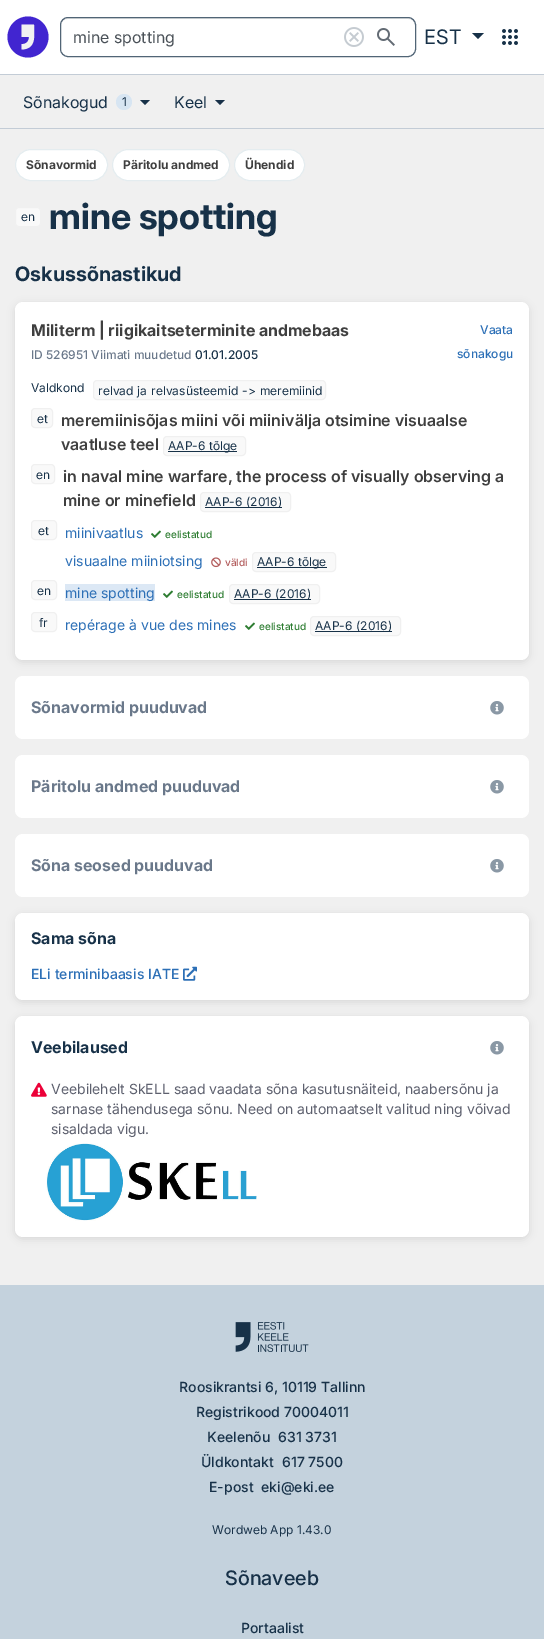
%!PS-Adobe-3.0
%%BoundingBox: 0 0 544 1639
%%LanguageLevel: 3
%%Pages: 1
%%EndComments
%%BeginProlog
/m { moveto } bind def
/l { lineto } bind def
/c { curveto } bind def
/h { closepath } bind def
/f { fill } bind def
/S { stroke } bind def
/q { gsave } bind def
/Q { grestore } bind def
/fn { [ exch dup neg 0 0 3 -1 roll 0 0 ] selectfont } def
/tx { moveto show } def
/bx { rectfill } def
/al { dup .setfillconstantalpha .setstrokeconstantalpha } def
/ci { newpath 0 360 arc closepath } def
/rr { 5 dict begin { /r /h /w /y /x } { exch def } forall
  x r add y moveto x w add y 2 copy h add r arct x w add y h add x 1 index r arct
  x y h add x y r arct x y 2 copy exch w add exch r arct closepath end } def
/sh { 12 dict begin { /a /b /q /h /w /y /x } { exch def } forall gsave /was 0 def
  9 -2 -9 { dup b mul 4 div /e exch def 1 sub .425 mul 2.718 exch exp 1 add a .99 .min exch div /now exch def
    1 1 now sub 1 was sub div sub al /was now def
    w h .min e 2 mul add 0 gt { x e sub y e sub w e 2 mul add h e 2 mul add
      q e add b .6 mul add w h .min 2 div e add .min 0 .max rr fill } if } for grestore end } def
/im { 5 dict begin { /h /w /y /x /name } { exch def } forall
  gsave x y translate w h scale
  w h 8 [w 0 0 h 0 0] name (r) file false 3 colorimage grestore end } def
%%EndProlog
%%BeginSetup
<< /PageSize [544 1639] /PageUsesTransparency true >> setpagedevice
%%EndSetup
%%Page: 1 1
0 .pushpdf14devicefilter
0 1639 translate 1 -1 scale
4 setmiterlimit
0.941 setgray
0 0 544 1639 bx
1 setgray
0 0 544 74 bx
0.765 0.8 0.839 setrgbcolor
0 74 544 1 bx
0.255 0.145 0.816 setrgbcolor
28 37 20.5 ci f
0.945 0.945 0.949 setrgbcolor
34 24.5 m 21.5 24.5 l 21.5 37 l 29 37 l 29 41.5 26 44.5 21.5 44 c 21.5 49.5 l 37 49 34 35 34 24.5 c f
0.925 setgray
68 19 m 408 19 l 412 19 415 22 415 26 c 415 25 l 415 21 412 18 408 18 c 68 18 l 64 18 61 21 61 25 c 61 26 l 61 22 64 19 68 19 c h f
0.75 al
0.09 0.192 0.282 setrgbcolor
60.5 17.5 355 39 7.5 rr S
/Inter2-Regular 16 fn
1 al
0.286 0.314 0.341 setrgbcolor
(mine spotting) 73 43 tx
(image0.raw) 344 27 20 20 im
(image1.raw) 377 28 18 18 im
/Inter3-Regular 20 fn
0.09 0.192 0.282 setrgbcolor
(EST) 424 44 tx
472 33 m 484 33 l 478 39 l h f
(image2.raw) 502 29 16 16 im
0.765 0.8 0.839 setrgbcolor
0 128 544 1 bx
/Inter2-Regular 16 fn
0.09 0.192 0.282 setrgbcolor
(Sõnakogud) 23 108 tx
0.843 0.898 0.949 setrgbcolor
124 102 8 ci f
/Inter-Regular 12 fn
0.09 0.192 0.282 setrgbcolor
(1) 122 106 tx
140 100 m 150 100 l 145 105 l h f
/Inter2-Regular 16 fn
(Keel) 174 108 tx
215 100 m 225 100 l 220 105 l h f
1 setgray
15.5 149.5 92 31 15.5 rr q f Q
0.894 0.925 0.937 setrgbcolor
S
/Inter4-Bold 12 fn
0.247 setgray
(Sõnavormid) 26 169 tx
1 setgray
112.5 149.5 117 31 15.5 rr q f Q
0.894 0.925 0.937 setrgbcolor
S
0.247 setgray
(Päritolu andmed) 123 169 tx
1 setgray
234.5 149.5 70 31 15.5 rr q f Q
0.894 0.925 0.937 setrgbcolor
S
0.247 setgray
(Ühendid) 245 169 tx
0.976 setgray
15.5 207.5 25 19 3.5 rr q f Q
0.941 setgray
S
/Inter-Regular 12 fn
0.09 0.192 0.282 setrgbcolor
21 221 m 0.05 0 (en) ashow
/Inter2-Bold 36 fn
(mine spotting) 49 229 tx
/Inter-Bold 20 fn
(Oskussõnastikud) 15 281 tx
0 setgray
15 304 514 358 8 4 0.1 sh
1 setgray
15 302 514 358 8 rr f
/Inter3-Bold 16 fn
0.247 setgray
(Militerm | riigikaitseterminite andmebaas) 31 336 tx
/Inter-Medium 12 fn
0.416 0.471 0.541 setrgbcolor
(ID 526951 Viimati muudetud) 31 359 tx
0.09 0.192 0.282 setrgbcolor
(01.01.2005) 195 359 tx
0.173 0.435 0.714 setrgbcolor
(Vaata) 480 334 tx
(sõnakogu) 457 358 tx
/Inter-Regular 12 fn
0.09 0.192 0.282 setrgbcolor
31 392 m 0.05 0 (Valdkond) ashow
0.976 setgray
93.5 380.5 232 19 3.5 rr q f Q
0.941 setgray
S
0.09 0.192 0.282 setrgbcolor
98 395 m 0.5 0 32 0.05 0 (relvad ja relvasüsteemid -> meremiinid) awidthshow
0.976 setgray
31.5 408.5 21 19 3.5 rr q f Q
0.941 setgray
S
0.09 0.192 0.282 setrgbcolor
37 423 m 0.05 0 (et) ashow
/Inter-SemiBold 16 fn
0.247 setgray
(meremiinisõjas miini või miinivälja otsimine visuaalse) 61 426 tx
(vaatluse teel) 61 450 tx
0.976 setgray
163.5 436.5 82 19 3.5 rr q f Q
0.941 setgray
S
0.09 0.192 0.282 setrgbcolor
168 451 69 1 bx
/Inter-Regular 12 fn
168 450 m 0.05 0 (AAP-6 tõlge) ashow
0.976 setgray
31.5 464.5 23 19 3.5 rr q f Q
0.941 setgray
S
0.09 0.192 0.282 setrgbcolor
36 479 m 0.05 0 (en) ashow
/Inter-SemiBold 16 fn
0.247 setgray
(in naval mine warfare, the process of visually observing a) 63 482 tx
(mine or minefield) 63 506 tx
0.976 setgray
200.5 492.5 90 19 3.5 rr q f Q
0.941 setgray
S
0.09 0.192 0.282 setrgbcolor
205 507 77 1 bx
/Inter-Regular 12 fn
205 506 m 0.05 0 (AAP-6 \(2016\)) ashow
0.976 setgray
31.5 520.5 25 19 3.5 rr q f Q
0.941 setgray
S
0.09 0.192 0.282 setrgbcolor
38 535 m 0.05 0 (et) ashow
/Inter-Regular 14 fn
0.173 0.435 0.714 setrgbcolor
(miinivaatlus) 65 538 tx
(image3.raw) 151 530 10 8 im
/Inter-Medium 10 fn
0.18 0.49 0.196 setrgbcolor
(eelistatud) 165 538 tx
/Inter-Regular 14 fn
0.173 0.435 0.714 setrgbcolor
(visuaalne miiniotsing) 65 566 tx
(image4.raw) 211 557 10 11 im
/Inter-Medium 10 fn
0.698 0.361 0.361 setrgbcolor
(väldi) 225 566 tx
0.976 setgray
252.5 552.5 83 19 3.5 rr q f Q
0.941 setgray
S
0.09 0.192 0.282 setrgbcolor
257 567 70 1 bx
/Inter-Regular 12 fn
257 566 m 0.05 0 (AAP-6 tõlge) ashow
0.976 setgray
31.5 580.5 25 19 3.5 rr q f Q
0.941 setgray
S
0.09 0.192 0.282 setrgbcolor
37 595 m 0.05 0 (en) ashow
0.863 0.91 0.961 setrgbcolor
65 584 90 17 bx
/Inter-Regular 14 fn
0.173 0.435 0.714 setrgbcolor
(mine spotting) 65 598 tx
(image3.raw) 163 590 10 8 im
/Inter-Medium 10 fn
0.18 0.49 0.196 setrgbcolor
(eelistatud) 177 598 tx
0.976 setgray
229.5 584.5 90 19 3.5 rr q f Q
0.941 setgray
S
0.09 0.192 0.282 setrgbcolor
234 599 77 1 bx
/Inter-Regular 12 fn
234 598 m 0.05 0 (AAP-6 \(2016\)) ashow
0.976 setgray
31.5 612.5 25 19 3.5 rr q f Q
0.941 setgray
S
0.09 0.192 0.282 setrgbcolor
39 627 m 0.05 0 (fr) ashow
/Inter-Regular 14 fn
0.173 0.435 0.714 setrgbcolor
(repérage à vue des mines) 65 630 tx
(image3.raw) 245 622 10 8 im
/Inter-Medium 10 fn
0.18 0.49 0.196 setrgbcolor
(eelistatud) 259 630 tx
0.976 setgray
310.5 616.5 90 19 3.5 rr q f Q
0.941 setgray
S
0.09 0.192 0.282 setrgbcolor
315 631 77 1 bx
/Inter-Regular 12 fn
315 630 m 0.05 0 (AAP-6 \(2016\)) ashow
1 setgray
15 676 514 63 8 rr f
/Inter3-Bold 16 fn
0.416 0.471 0.541 setrgbcolor
(Sõnavormid puuduvad) 31 713 tx
(image5.raw) 490 701 14 14 im
1 setgray
15 755 514 63 8 rr f
0.416 0.471 0.541 setrgbcolor
(Päritolu andmed puuduvad) 31 792 tx
(image5.raw) 490 780 14 14 im
1 setgray
15 834 514 63 8 rr f
0.416 0.471 0.541 setrgbcolor
(Sõna seosed puuduvad) 31 871 tx
(image5.raw) 490 859 14 14 im
0 setgray
15 915 514 87 8 4 0.1 sh
1 setgray
15 913 514 87 8 rr f
0.09 0.192 0.282 setrgbcolor
(Sama sõna) 31 944 tx
/Inter-Medium 14 fn
0.173 0.435 0.714 setrgbcolor
(ELi terminibaasis IATE) 31 979 tx
(image6.raw) 183 966 14 15 im
0 setgray
15 1018 514 221 8 4 0.1 sh
1 setgray
15 1016 514 221 8 rr f
/Inter3-Bold 16 fn
0.09 0.192 0.282 setrgbcolor
(Veebilaused) 31 1053 tx
(image5.raw) 490 1041 14 14 im
(image7.raw) 31 1082 16 15 im
/Inter-Regular 14 fn
0.365 0.376 0.431 setrgbcolor
(Veebilehelt SkELL saad vaadata sõna kasutusnäiteid, naabersõnu ja) 51 1094 tx
(sarnase tähendusega sõnu. Need on automaatselt valitud ning võivad) 51 1114 tx
(sisaldada vigu.) 51 1134 tx
(image8.raw) 46 1143 211 78 im
0.769 0.824 0.867 setrgbcolor
0 1285 544 354 bx
(image9.raw) 235 1322 74 30 im
/Inter-Medium 14 fn
0.09 0.192 0.282 setrgbcolor
(Roosikrantsi 6, 10119 Tallinn) 179 1392 tx
(Registrikood 70004011) 196 1417 tx
(Keelenõu) 207 1442 tx
(631 3731) 278 1442 tx
(Üldkontakt) 201 1467 tx
(617 7500) 282 1467 tx
(E-post) 209 1492 tx
(eki@eki.ee) 261 1492 tx
/Inter-Regular 12 fn
(Wordweb App 1.43.0) 212 1534 tx
/Inter2-Medium 20 fn
(Sõnaveeb) 225 1585 tx
/Inter-Medium 14 fn
(Portaalist) 241 1633 tx
.poppdf14devicefilter showpage
%%EOF
